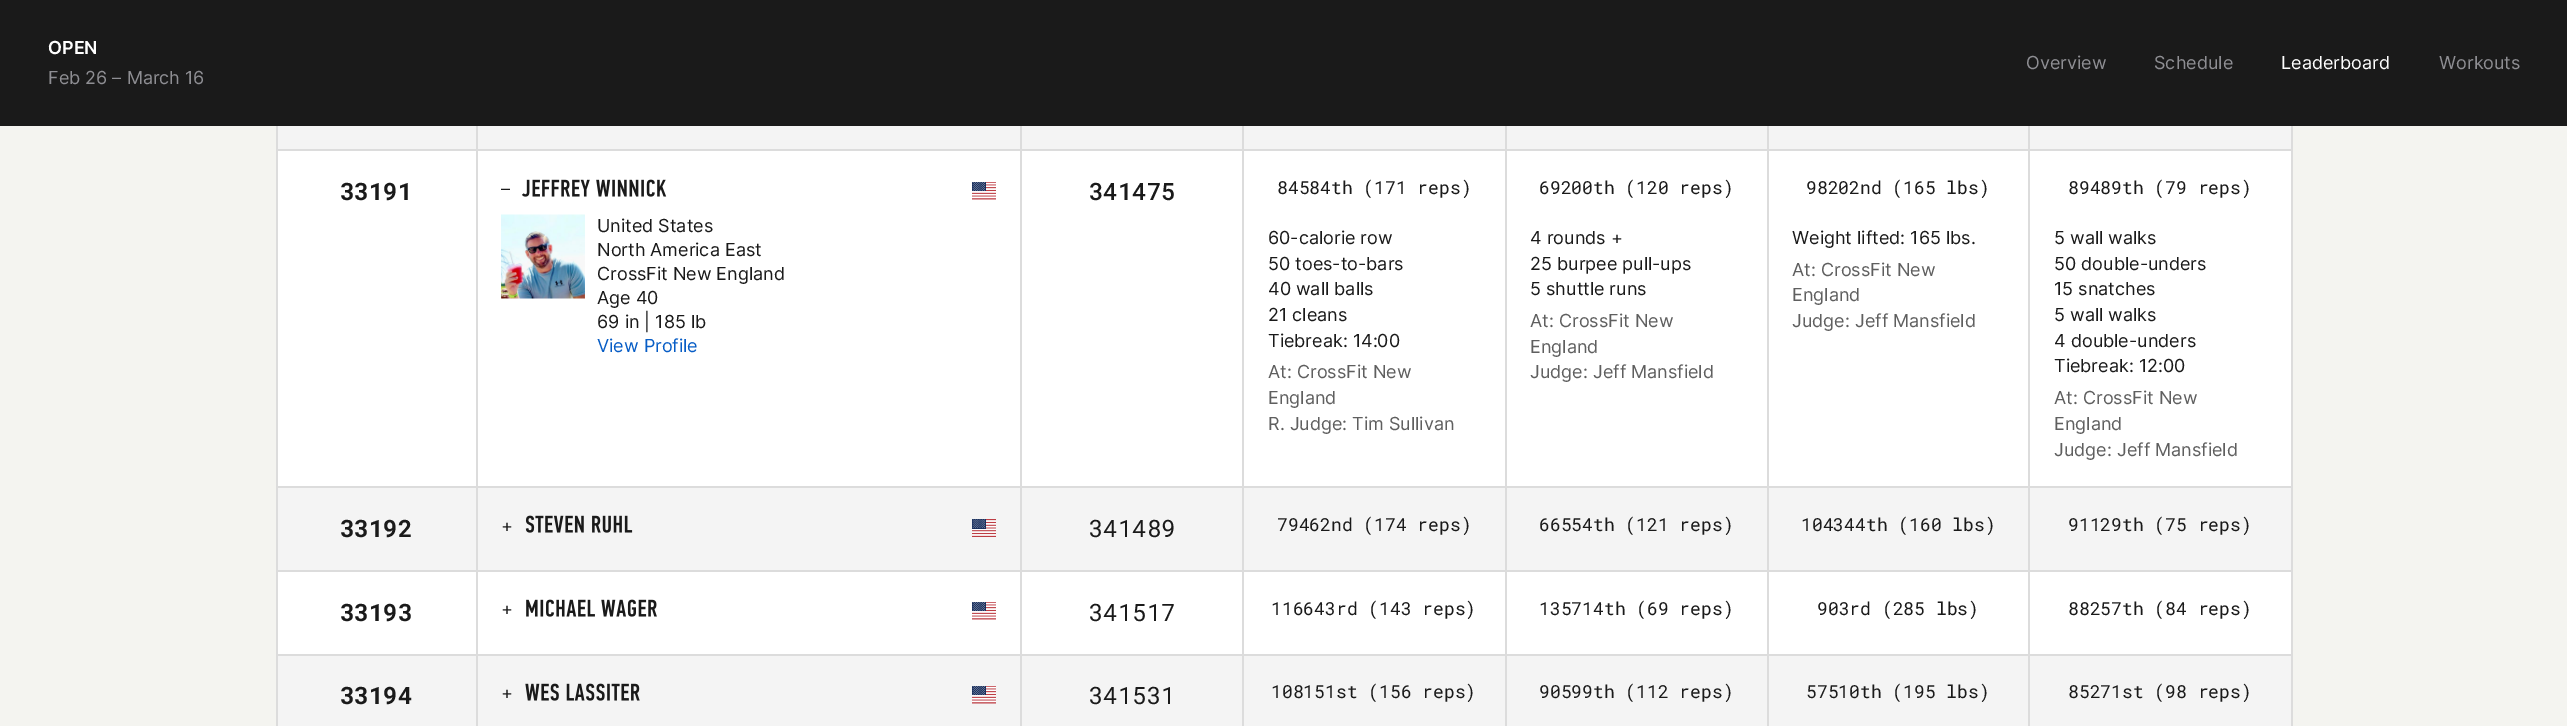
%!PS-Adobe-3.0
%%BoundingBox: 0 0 2567 726
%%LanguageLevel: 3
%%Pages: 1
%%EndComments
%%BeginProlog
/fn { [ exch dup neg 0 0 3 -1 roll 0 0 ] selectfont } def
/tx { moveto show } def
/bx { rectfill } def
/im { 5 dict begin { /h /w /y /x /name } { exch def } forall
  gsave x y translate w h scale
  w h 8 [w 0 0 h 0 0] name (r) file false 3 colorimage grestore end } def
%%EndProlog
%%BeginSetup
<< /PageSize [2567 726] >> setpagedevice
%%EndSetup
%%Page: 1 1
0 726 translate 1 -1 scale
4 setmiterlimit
0.957 0.957 0.941 setrgbcolor
0 0 2567 726 bx
0.102 setgray
0 0 2567 126 bx
/Inter-SemiBold 18 fn
1 setgray
(OPEN) 48 54 tx
/Inter-Regular 18 fn
0.557 0.557 0.576 setrgbcolor
(Feb 26 – March 16) 48 84 tx
(Overview) 2026 69 tx
(Schedule) 2154 69 tx
1 setgray
(Leaderboard) 2281 69 tx
0.557 0.557 0.576 setrgbcolor
(Workouts) 2439 69 tx
1 setgray
278 151 2013 503 bx
0.957 setgray
278 126 2013 23 bx
0.863 setgray
476 126 2 24 bx
276 149 201 2 bx
276 126 2 24 bx
1020 126 2 24 bx
477 149 545 2 bx
1242 126 2 24 bx
1022 149 222 2 bx
1505 126 2 24 bx
1244 149 262 2 bx
1767 126 2 24 bx
1506 149 263 2 bx
2028 126 2 24 bx
1769 149 261 2 bx
2291 126 2 24 bx
2030 149 262 2 bx
0.957 setgray
278 488 2013 82 bx
278 656 2013 70 bx
0.863 setgray
476 150 2 576 bx
276 486 201 2 bx
276 150 2 338 bx
/RobotoMono-Bold 24 fn
0.102 setgray
(33191) 340 200 tx
0.863 setgray
1020 150 2 576 bx
477 486 545 2 bx
/Inter-Regular 18 fn
0.102 setgray
(–) 501 195 tx
(image0.raw) 522 179 145 18 im
(image1.raw) 972 182 24 18 im
(image2.raw) 501 214 84 85 im
(United States) 597 232 tx
(North America East) 597 256 tx
(CrossFit New England) 597 280 tx
(Age 40) 597 304 tx
(69 in | 185 lb) 597 328 tx
0.027 0.365 0.776 setrgbcolor
(View Profile) 597 352 tx
0.863 setgray
1242 150 2 576 bx
1022 486 222 2 bx
/RobotoMono-Medium 24 fn
0.102 setgray
(341475) 1089 200 tx
0.863 setgray
1505 150 2 576 bx
1244 486 262 2 bx
/RobotoMono-Regular 18 fn
0.102 setgray
(84584th \(171 reps\)) 1277 194 tx
/Inter-Regular 18 fn
(60-calorie row) 1268 244 tx
(50 toes-to-bars) 1268 270 tx
(40 wall balls) 1268 295 tx
(21 cleans) 1268 321 tx
(Tiebreak: 14:00) 1268 347 tx
0.373 setgray
(At: CrossFit New) 1268 378 tx
(England) 1268 404 tx
(R. Judge: Tim Sullivan) 1268 430 tx
0.863 setgray
1767 150 2 576 bx
1506 486 263 2 bx
/RobotoMono-Regular 18 fn
0.102 setgray
(69200th \(120 reps\)) 1539 194 tx
/Inter-Regular 18 fn
(4 rounds +) 1530 244 tx
(25 burpee pull-ups) 1530 270 tx
(5 shuttle runs) 1530 295 tx
0.373 setgray
(At: CrossFit New) 1530 327 tx
(England) 1530 353 tx
(Judge: Jeff Mansfield) 1530 378 tx
0.863 setgray
2028 150 2 576 bx
1769 486 261 2 bx
/RobotoMono-Regular 18 fn
0.102 setgray
(98202nd \(165 lbs\)) 1806 194 tx
/Inter-Regular 18 fn
(Weight lifted: 165 lbs.) 1792 244 tx
0.373 setgray
(At: CrossFit New) 1792 276 tx
(England) 1792 301 tx
(Judge: Jeff Mansfield) 1792 327 tx
0.863 setgray
2291 150 2 576 bx
2030 486 262 2 bx
/RobotoMono-Regular 18 fn
0.102 setgray
(89489th \(79 reps\)) 2068 194 tx
/Inter-Regular 18 fn
(5 wall walks) 2054 244 tx
(50 double-unders) 2054 270 tx
(15 snatches) 2054 295 tx
(5 wall walks) 2054 321 tx
(4 double-unders) 2054 347 tx
(Tiebreak: 12:00) 2054 372 tx
0.373 setgray
(At: CrossFit New) 2054 404 tx
(England) 2054 430 tx
(Judge: Jeff Mansfield) 2054 456 tx
0.863 setgray
276 570 2016 2 bx
276 488 2 84 bx
/RobotoMono-Bold 24 fn
0.102 setgray
(33192) 340 537 tx
/Inter-Regular 18 fn
(+) 501 532 tx
(image3.raw) 525 515 108 18 im
(image4.raw) 972 519 24 18 im
/RobotoMono-Regular 24 fn
(341489) 1089 537 tx
/RobotoMono-Regular 18 fn
(79462nd \(174 reps\)) 1277 531 tx
(66554th \(121 reps\)) 1539 531 tx
(104344th \(160 lbs\)) 1801 531 tx
(91129th \(75 reps\)) 2068 531 tx
0.863 setgray
276 654 2016 2 bx
276 572 2 154 bx
/RobotoMono-Bold 24 fn
0.102 setgray
(33193) 340 621 tx
/Inter-Regular 18 fn
(+) 501 615 tx
(image5.raw) 526 599 131 18 im
(image1.raw) 972 602 24 18 im
/RobotoMono-Regular 24 fn
(341517) 1089 621 tx
/RobotoMono-Regular 18 fn
(116643rd \(143 reps\)) 1271 615 tx
(135714th \(69 reps\)) 1539 615 tx
(903rd \(285 lbs\)) 1817 615 tx
(88257th \(84 reps\)) 2068 615 tx
/RobotoMono-Bold 24 fn
(33194) 340 704 tx
/Inter-Regular 18 fn
(+) 501 699 tx
(image6.raw) 525 683 115 18 im
(image7.raw) 972 686 24 18 im
/RobotoMono-Regular 24 fn
(341531) 1089 704 tx
/RobotoMono-Regular 18 fn
(108151st \(156 reps\)) 1271 698 tx
(90599th \(112 reps\)) 1539 698 tx
(57510th \(195 lbs\)) 1806 698 tx
(85271st \(98 reps\)) 2068 698 tx
showpage
%%EOF
